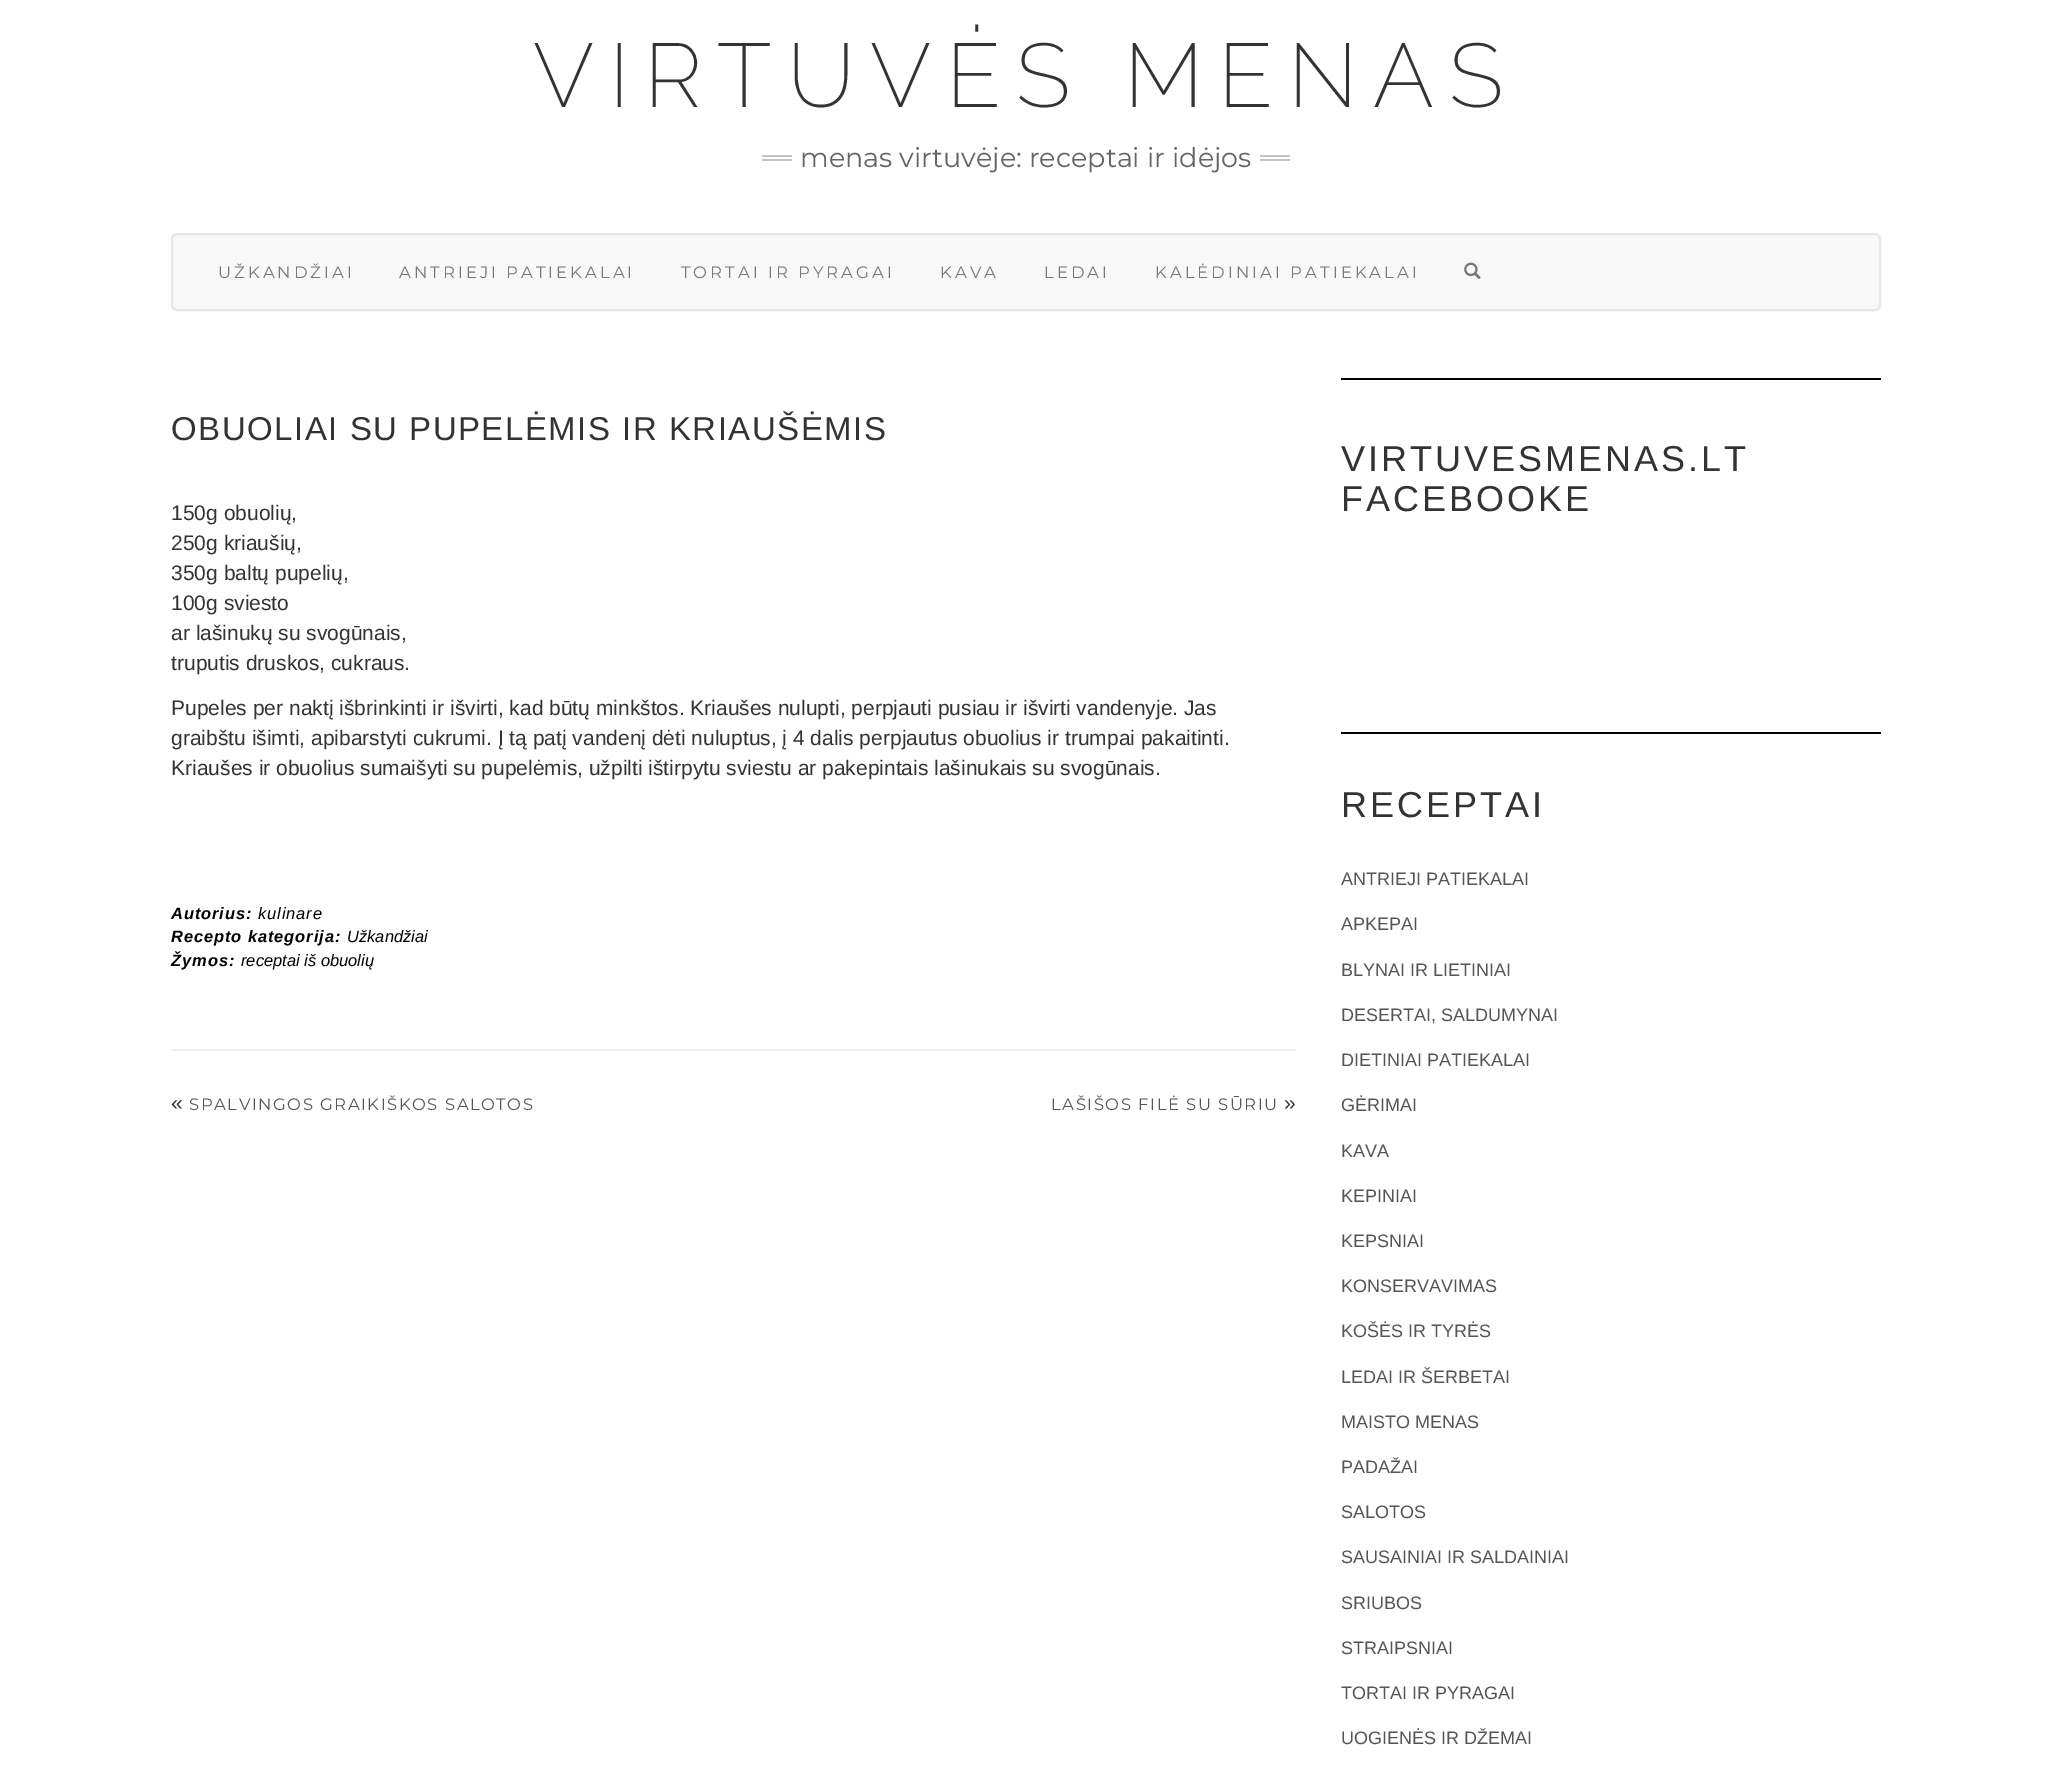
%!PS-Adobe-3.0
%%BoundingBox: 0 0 2052 1779
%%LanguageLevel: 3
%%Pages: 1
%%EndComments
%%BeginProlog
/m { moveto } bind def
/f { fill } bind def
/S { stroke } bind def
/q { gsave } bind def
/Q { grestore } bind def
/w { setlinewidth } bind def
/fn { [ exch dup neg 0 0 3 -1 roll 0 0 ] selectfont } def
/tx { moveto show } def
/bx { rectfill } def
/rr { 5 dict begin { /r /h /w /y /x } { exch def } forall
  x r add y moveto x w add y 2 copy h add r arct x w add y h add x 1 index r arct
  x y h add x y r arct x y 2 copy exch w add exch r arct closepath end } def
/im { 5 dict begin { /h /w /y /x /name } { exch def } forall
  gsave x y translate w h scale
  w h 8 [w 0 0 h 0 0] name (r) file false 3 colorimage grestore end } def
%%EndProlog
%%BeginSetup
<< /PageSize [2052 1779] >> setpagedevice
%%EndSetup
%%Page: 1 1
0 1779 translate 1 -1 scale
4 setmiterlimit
1 setgray
0 0 2052 1779 bx
/Raleway-ExtraLight 90 fn
0.2 setgray
533 107 m 15 0 (VIRTUVĖS MENAS) ashow
0.769 setgray
762 155 30 2 bx
762 159 30 2 bx
/Montserrat-Regular 27 fn
0.392 setgray
(menas virtuvėje: receptai ir idėjos) 800 167 tx
0.769 setgray
1260 155 30 2 bx
1260 159 30 2 bx
0.973 setgray
172 234 1708 76 5 rr q f Q
0.906 setgray
2 w
S
/Montserrat-Regular 16.5 fn
0.467 setgray
218 278 m 3 0 (UŽKANDŽIAI) ashow
399 278 m 3 0 (ANTRIEJI PATIEKALAI) ashow
681 278 m 3 0 (TORTAI IR PYRAGAI) ashow
940 278 m 3 0 (KAVA) ashow
1044 278 m 3 0 (LEDAI) ashow
1155 278 m 3 0 (KALĖDINIAI PATIEKALAI) ashow
(image0.raw) 1464 262 17 17 im
/LiberationSans-Regular 33 fn
0.2 setgray
171 440 m 1.5 0 (OBUOLIAI SU PUPELĖMIS IR KRIAUŠĖMIS) ashow
/LiberationSans-Regular 21 fn
(150g obuolių,) 171 520 tx
(250g kriaušių,) 171 550 tx
(350g baltų pupelių,) 171 580 tx
(100g sviesto) 171 610 tx
(ar lašinukų su svogūnais,) 171 640 tx
(truputis druskos, cukraus.) 171 670 tx
(Pupeles per naktį išbrinkinti ir išvirti, kad būtų minkštos. Kriaušes nulupti, perpjauti pusiau ir išvirti vandenyje. Jas) 171 715 tx
(graibštu išimti, apibarstyti cukrumi. Į tą patį vandenį dėti nuluptus, į 4 dalis perpjautus obuolius ir trumpai pakaitinti.) 171 745 tx
(Kriaušes ir obuolius sumaišyti su pupelėmis, užpilti ištirpytu sviestu ar pakepintais lašinukais su svogūnais.) 171 775 tx
/LiberationSans-BoldItalic 16.5 fn
0 setgray
171 919 m 0.9 0 (Autorius:) ashow
/LiberationSans-Italic 16.5 fn
258 919 m 0.9 0 (kulinare) ashow
/LiberationSans-BoldItalic 16.5 fn
171 942 m 0.9 0 (Recepto kategorija:) ashow
/LiberationSans-Italic 16.5 fn
(Užkandžiai) 347 942 tx
/LiberationSans-BoldItalic 16.5 fn
171 966 m 0.9 0 (Žymos:) ashow
/LiberationSans-Italic 16.5 fn
(receptai iš obuolių) 241 966 tx
0.933 setgray
171 1049 1125 2 bx
/LiberationSans-Regular 21 fn
0.2 setgray
(«) 171 1110 tx
/Montserrat-Regular 16.5 fn
0.333 setgray
189 1110 m 1.5 0 (SPALVINGOS GRAIKIŠKOS SALOTOS) ashow
1051 1110 m 1.5 0 (LAŠIŠOS FILĖ SU SŪRIU) ashow
/LiberationSans-Regular 21 fn
0.2 setgray
(») 1284 1110 tx
0 setgray
1341 378 540 2 bx
1341 732 540 2 bx
/LiberationSans-Regular 36 fn
0.2 setgray
1341 471 m 3 0 (VIRTUVESMENAS.LT) ashow
1341 511 m 3 0 (FACEBOOKE) ashow
1341 817 m 3 0 (RECEPTAI) ashow
/LiberationSans-Regular 18 fn
0.333 setgray
(ANTRIEJI PATIEKALAI) 1341 885 tx
(APKEPAI) 1341 930 tx
(BLYNAI IR LIETINIAI) 1341 976 tx
(DESERTAI, SALDUMYNAI) 1341 1021 tx
(DIETINIAI PATIEKALAI) 1341 1066 tx
(GĖRIMAI) 1341 1111 tx
(KAVA) 1341 1157 tx
(KEPINIAI) 1341 1202 tx
(KEPSNIAI) 1341 1247 tx
(KONSERVAVIMAS) 1341 1292 tx
(KOŠĖS IR TYRĖS) 1341 1337 tx
(LEDAI IR ŠERBETAI) 1341 1383 tx
(MAISTO MENAS) 1341 1428 tx
(PADAŽAI) 1341 1473 tx
(SALOTOS) 1341 1518 tx
(SAUSAINIAI IR SALDAINIAI) 1341 1563 tx
(SRIUBOS) 1341 1609 tx
(STRAIPSNIAI) 1341 1654 tx
(TORTAI IR PYRAGAI) 1341 1699 tx
(UOGIENĖS IR DŽEMAI) 1341 1744 tx
showpage
%%EOF
